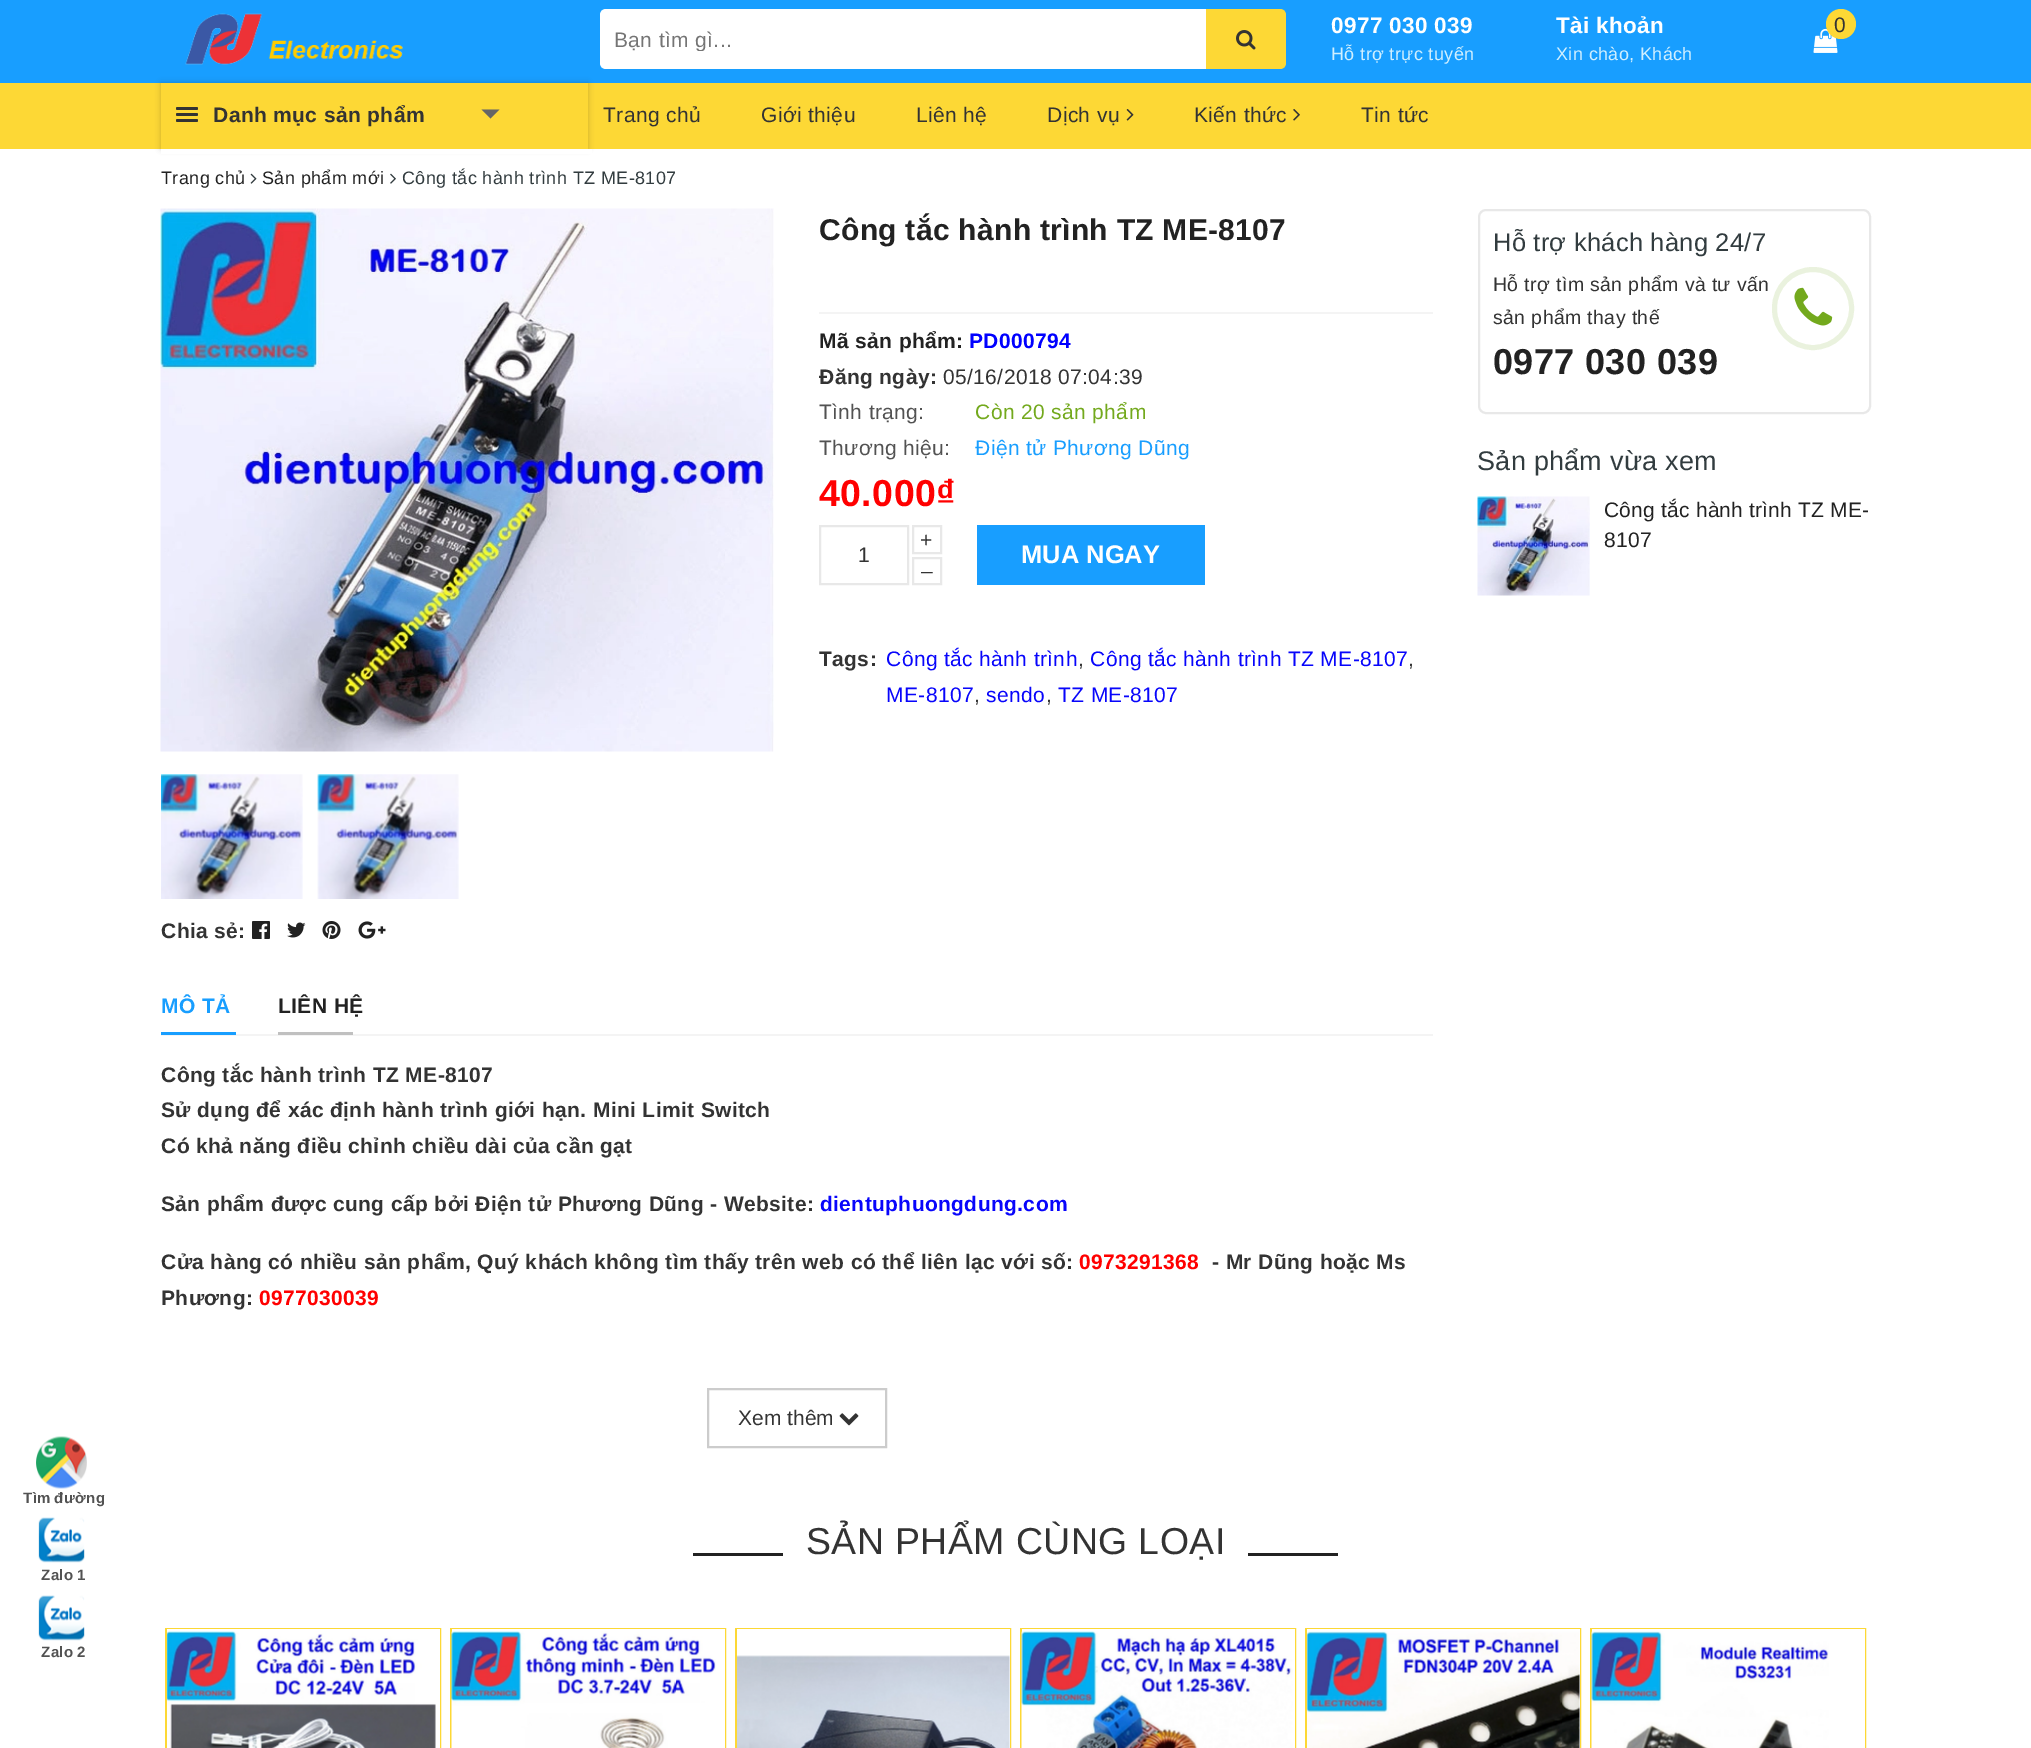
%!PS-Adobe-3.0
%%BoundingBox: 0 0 2031 1748
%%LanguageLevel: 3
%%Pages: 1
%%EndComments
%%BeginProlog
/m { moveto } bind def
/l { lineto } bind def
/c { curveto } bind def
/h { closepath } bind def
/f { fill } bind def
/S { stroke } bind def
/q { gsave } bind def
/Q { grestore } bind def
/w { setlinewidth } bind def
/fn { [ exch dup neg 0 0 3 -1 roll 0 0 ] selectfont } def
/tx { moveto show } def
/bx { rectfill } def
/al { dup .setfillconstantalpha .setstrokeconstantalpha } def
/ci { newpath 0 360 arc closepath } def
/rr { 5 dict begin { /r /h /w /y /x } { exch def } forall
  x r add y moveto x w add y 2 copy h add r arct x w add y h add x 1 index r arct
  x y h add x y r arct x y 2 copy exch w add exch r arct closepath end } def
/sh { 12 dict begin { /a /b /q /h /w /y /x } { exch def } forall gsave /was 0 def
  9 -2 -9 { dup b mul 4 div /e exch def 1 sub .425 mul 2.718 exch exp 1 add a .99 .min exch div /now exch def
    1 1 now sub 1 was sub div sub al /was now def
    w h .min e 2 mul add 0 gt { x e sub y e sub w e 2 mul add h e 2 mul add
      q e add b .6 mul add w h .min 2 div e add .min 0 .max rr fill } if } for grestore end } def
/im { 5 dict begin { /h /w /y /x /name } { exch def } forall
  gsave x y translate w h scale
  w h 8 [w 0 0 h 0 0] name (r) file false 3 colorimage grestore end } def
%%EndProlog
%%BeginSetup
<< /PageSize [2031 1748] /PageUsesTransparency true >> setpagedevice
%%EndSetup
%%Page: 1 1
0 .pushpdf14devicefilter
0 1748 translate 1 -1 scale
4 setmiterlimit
1 setgray
0 0 2031 1748 bx
(image0.raw) 36 1436 51 53 im
/LiberationSans-Bold 15 fn
0.322 setgray
23 1503 m -1 0 32 0.38 0 (Tìm đường) awidthshow
(image1.raw) 38 1517 47 46 im
41 1580 m -1 0 32 0.38 0 (Zalo 1) awidthshow
(image1.raw) 38 1595 47 46 im
41 1657 m -1 0 32 0.38 0 (Zalo 2) awidthshow
0.094 0.62 1 setrgbcolor
0 0 2031 83 bx
(image2.raw) 185 13 218 52 im
1 setgray
606 9 m 1208 9 l 1208 69 l 606 69 l 602.5 69 600 66.5 600 63 c 600 15 l 600 11.5 602.5 9 606 9 c h f
q
615 27 572 24 rectclip
/LiberationSans-Regular 21 fn
0.459 setgray
614 47 m 0.38 0 (Bạn tìm gì...) ashow
Q
0.992 0.847 0.208 setrgbcolor
1206 9 m 1280 9 l 1283.5 9 1286 11.5 1286 15 c 1286 63 l 1286 66.5 1283.5 69 1280 69 c 1206 69 l h f
(image3.raw) 1236 30 20 20 im
/LiberationSans-Bold 22.5 fn
1 setgray
1331 33 m 0.38 0 (0977 030 039) ashow
/LiberationSans-Regular 18 fn
0.816 0.937 1 setrgbcolor
1331 60 m 0.38 0 (Hỗ trợ trực tuyến) ashow
/LiberationSans-Bold 22.5 fn
1 setgray
1556 33 m 0.38 0 (Tài khoản) ashow
/LiberationSans-Regular 18 fn
0.816 0.937 1 setrgbcolor
1556 60 m 0.38 0 (Xin chào, Khách) ashow
(image4.raw) 1813 28 25 25 im
0.992 0.847 0.208 setrgbcolor
1841 24 15 ci f
/LiberationSans-Regular 21 fn
0.2 setgray
1834 32 m 0.38 0 (0) ashow
0.992 0.847 0.208 setrgbcolor
0 83 2031 66 bx
0 setgray
161 83 427 66 0 3 0.2 sh
0.992 0.847 0.208 setrgbcolor
161 83 427 66 bx
0.2 setgray
176 107 22 3 1.5 rr f
176 113 22 3 1.5 rr f
176 119 22 3 1.5 rr f
/LiberationSans-Bold 21 fn
213 122 m 0.38 0 (Danh mục sản phẩm) ashow
0.4 setgray
481.5 109.5 m 499.5 109.5 l 490.5 118.5 l h f
/LiberationSans-Regular 21 fn
0.2 setgray
603 122 m 0.38 0 (Trang chủ) ashow
761 122 m 0.38 0 (Giới thiệu) ashow
916 122 m 0.38 0 (Liên hệ) ashow
1047 122 m 0.38 0 (Dịch vụ) ashow
(image5.raw) 1126 109 8 12 im
1194 122 m 0.38 0 (Kiến thức) ashow
(image6.raw) 1293 109 7 12 im
1361 122 m 0.38 0 (Tin tức) ashow
1 setgray
161 149 431 5 bx
/LiberationSans-Regular 18 fn
0.133 setgray
161 184 m 0.38 0 (Trang chủ) ashow
(image7.raw) 250 173 7 11 im
262 184 m 0.38 0 (Sản phẩm mới) ashow
(image8.raw) 390 173 6 11 im
0.196 0.235 0.247 setrgbcolor
402 184 m 0.38 0 (Công tắc hành trình TZ ME-8107) ashow
/LiberationSans-Bold 30 fn
0.133 setgray
819 240 m 0.3 0 (Công tắc hành trình TZ ME-8107) ashow
0.957 setgray
819 312 614 2 bx
/LiberationSans-Bold 21 fn
0.133 setgray
819 348 m 0.38 0 (Mã sản phẩm:) ashow
0 0 1 setrgbcolor
969 348 m 0.38 0 (PD000794) ashow
0.2 setgray
819 384 m 0.38 0 (Đăng ngày:) ashow
/LiberationSans-Regular 21 fn
943 384 m 0.38 0 (05/16/2018 07:04:39) ashow
0.322 setgray
819 419 m 0.38 0 (Tình trạng:) ashow
0.451 0.663 0.114 setrgbcolor
975 419 m 0.38 0 (Còn 20 sản phẩm) ashow
0.322 setgray
819 455 m 0.38 0 (Thương hiệu:) ashow
0.094 0.62 1 setrgbcolor
975 455 m 0.38 0 (Điện tử Phương Dũng) ashow
/LiberationSans-Bold 37.5 fn
1 0 0 setrgbcolor
819 506 m 0.38 0 (40.000₫) ashow
0.91 setgray
2 w
820 526 88 58 rectstroke
/LiberationSans-Regular 21 fn
0.2 setgray
858 562 m 0.38 0 (1) ashow
0.91 setgray
913 526 28 27 rectstroke
0.2 setgray
920 547 m 0.38 0 (+) ashow
0.91 setgray
913 558 28 26 rectstroke
0.2 setgray
921 578 m 0.38 0 (–) ashow
0.094 0.62 1 setrgbcolor
977 525 228 60 bx
/LiberationSans-Bold 25.5 fn
1 setgray
(MUA NGAY) 1021 563 tx
/LiberationSans-Bold 21 fn
0.2 setgray
819 666 m 0.38 0 (Tags:) ashow
/LiberationSans-Regular 21 fn
0.031 0.02 0.984 setrgbcolor
886 666 m 0.38 0 (Công tắc hành trình) ashow
0.2 setgray
1078 666 m 0.38 0 (,) ashow
0.031 0.02 0.984 setrgbcolor
1090 666 m 0.38 0 (Công tắc hành trình TZ ME-8107) ashow
0.2 setgray
1408 666 m 0.38 0 (,) ashow
0.031 0.02 0.984 setrgbcolor
886 702 m 0.38 0 (ME-8107) ashow
0.2 setgray
974 702 m 0.38 0 (,) ashow
0.031 0.02 0.984 setrgbcolor
986 702 m 0.38 0 (sendo) ashow
0.2 setgray
1046 702 m 0.38 0 (,) ashow
0.031 0.02 0.984 setrgbcolor
1058 702 m 0.38 0 (TZ ME-8107) ashow
(image9.raw) 160 208 614 544 im
(image10.raw) 161 774 142 125 im
(image11.raw) 317 774 142 125 im
/LiberationSans-Bold 21 fn
0.2 setgray
161 938 m 0.38 0 (Chia sẻ:) ashow
(image12.raw) 252 921 18 18 im
(image13.raw) 287 922 19 16 im
(image14.raw) 322 921 19 18 im
(image15.raw) 358 921 28 18 im
0.957 setgray
161 1034 1272 2 bx
0.094 0.62 1 setrgbcolor
161 1013 m 0.38 0 (MÔ TẢ) ashow
161 1032 75 3 bx
0.133 setgray
278 1013 m 0.38 0 (LIÊN HỆ) ashow
0.753 setgray
278 1032 75 3 bx
0.2 setgray
161 1082 m 0.38 0 (Công tắc hành trình TZ ME-8107) ashow
161 1117 m 0.38 0 (Sử dụng để xác định hành trình giới hạn. Mini Limit Switch) ashow
161 1153 m 0.38 0 (Có khả năng điều chỉnh chiều dài của cần gạt) ashow
161 1211 m 0.38 0 (Sản phẩm được cung cấp bởi Điện tử Phương Dũng - Website:) ashow
0.031 0.02 0.984 setrgbcolor
820 1211 m 0.38 0 (dientuphuongdung.com) ashow
0.2 setgray
161 1269 m 0.38 0 (Cửa hàng có nhiều sản phẩm, Quý khách không tìm thấy trên web có thể liên lạc với số:) ashow
1 0 0 setrgbcolor
1079 1269 m 0.38 0 (0973291368) ashow
0.2 setgray
1212 1269 m 0.38 0 (- Mr Dũng hoặc Ms) ashow
161 1305 m 0.38 0 (Phương:) ashow
1 0 0 setrgbcolor
259 1305 m 0.38 0 (0977030039) ashow
0.8 setgray
708 1389 178 58 rectstroke
/LiberationSans-Regular 21 fn
0.2 setgray
(Xem thêm) 738 1425 tx
(image16.raw) 839 1413 20 13 im
0.91 setgray
1479 210 391 203 7 rr S
/LiberationSans-Regular 25.5 fn
0.196 0.235 0.247 setrgbcolor
1493 251 m 0.25 0 (Hỗ trợ khách hàng 24/7) ashow
/LiberationSans-Regular 19.5 fn
0.2 setgray
1493 291 m 0.38 0 (Hỗ trợ tìm sản phẩm và tư vấn) ashow
1493 324 m 0.38 0 (sản phẩm thay thế) ashow
/LiberationSans-Bold 36 fn
0.133 setgray
1493 374 m 0.4 0 (0977 030 039) ashow
0.918 0.949 0.871 setrgbcolor
5 w
1774.5 269.5 77 78 38.5 rr S
(image17.raw) 1794 287 39 39 im
/LiberationSans-Regular 27 fn
0.196 0.235 0.247 setrgbcolor
1477 470 m 0.25 0 (Sản phẩm vừa xem) ashow
(image18.raw) 1477 496 113 100 im
/LiberationSans-Regular 21 fn
0.133 setgray
1604 517 m 0.2 0 (Công tắc hành trình TZ ME-) ashow
1604 547 m 0.2 0 (8107) ashow
693 1553 90 3 bx
/LiberationSans-Regular 37.5 fn
0.2 setgray
806 1554 m 0.38 0 (SẢN PHẨM CÙNG LOẠI) ashow
0.133 setgray
1248 1553 90 3 bx
0.992 0.847 0.208 setrgbcolor
2 w
166 1629 274 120 rectstroke
1 setgray
167 1629 273 119 bx
(image19.raw) 167 1631 269 117 im
0.992 0.847 0.208 setrgbcolor
451 1629 274 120 rectstroke
1 setgray
452 1629 273 119 bx
(image20.raw) 451 1631 265 117 im
0.992 0.847 0.208 setrgbcolor
736 1629 274 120 rectstroke
1 setgray
737 1629 273 119 bx
(image21.raw) 737 1655 273 93 im
0.992 0.847 0.208 setrgbcolor
1021 1629 274 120 rectstroke
1 setgray
1022 1629 273 119 bx
(image22.raw) 1021 1631 272 117 im
0.992 0.847 0.208 setrgbcolor
1306 1629 274 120 rectstroke
1 setgray
1307 1629 273 119 bx
(image23.raw) 1307 1631 273 117 im
0.992 0.847 0.208 setrgbcolor
1591 1629 274 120 rectstroke
1 setgray
1592 1629 273 119 bx
(image24.raw) 1591 1631 238 117 im
.poppdf14devicefilter showpage
%%EOF
